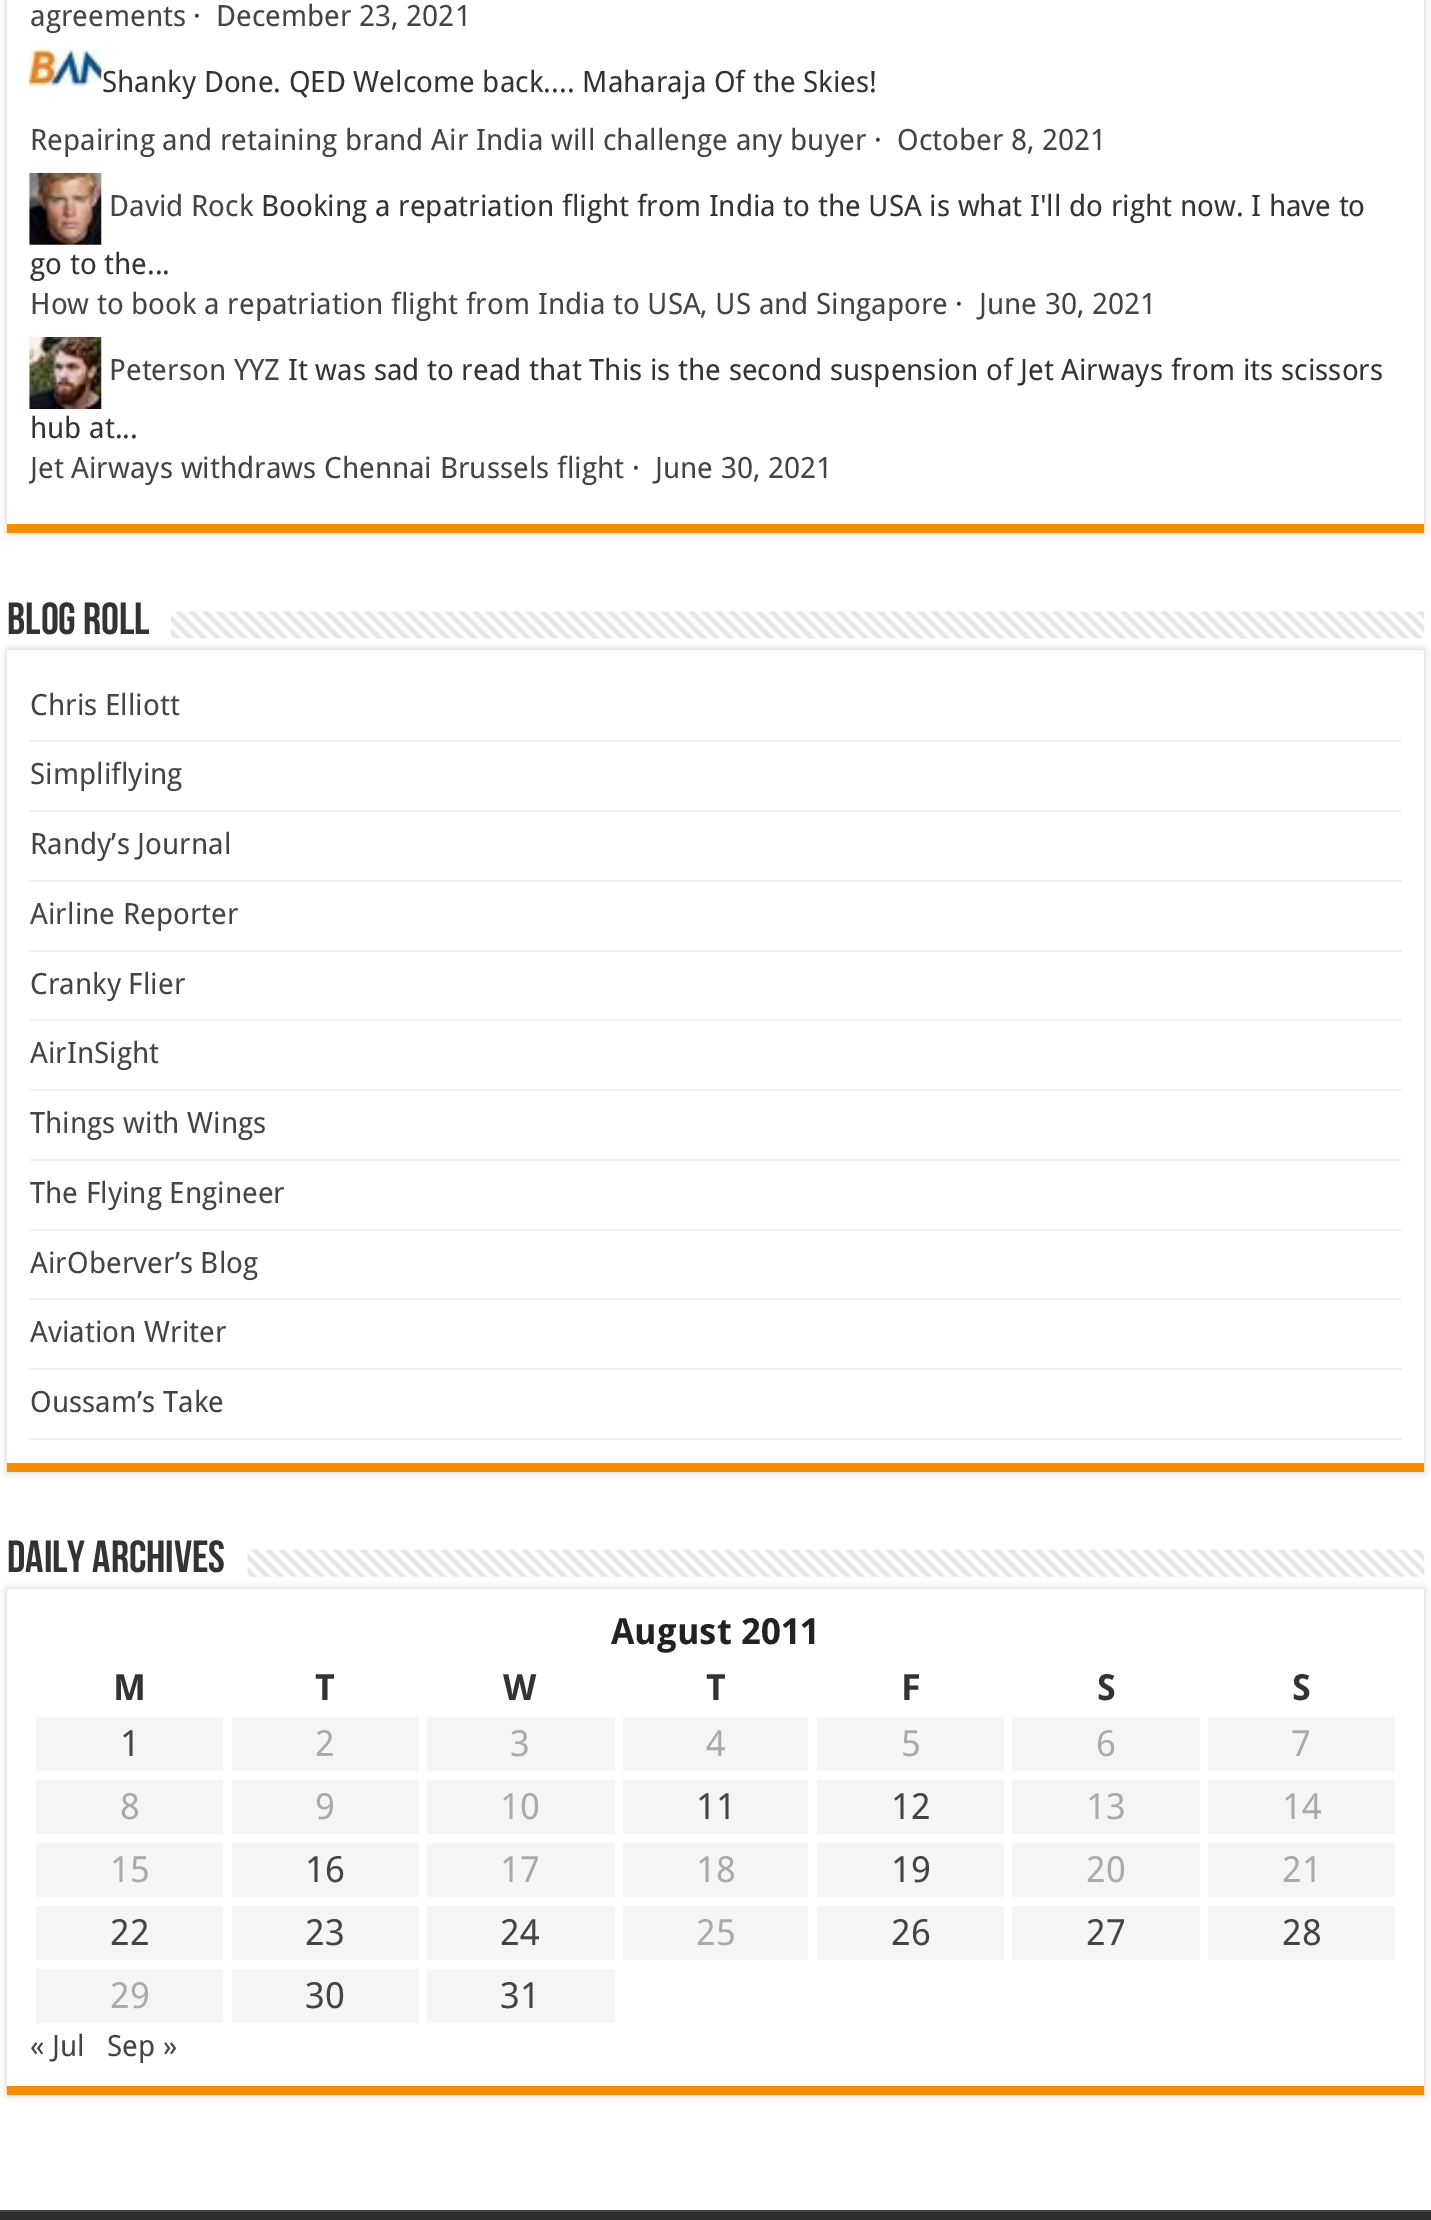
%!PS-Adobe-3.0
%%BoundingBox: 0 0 1431 2220
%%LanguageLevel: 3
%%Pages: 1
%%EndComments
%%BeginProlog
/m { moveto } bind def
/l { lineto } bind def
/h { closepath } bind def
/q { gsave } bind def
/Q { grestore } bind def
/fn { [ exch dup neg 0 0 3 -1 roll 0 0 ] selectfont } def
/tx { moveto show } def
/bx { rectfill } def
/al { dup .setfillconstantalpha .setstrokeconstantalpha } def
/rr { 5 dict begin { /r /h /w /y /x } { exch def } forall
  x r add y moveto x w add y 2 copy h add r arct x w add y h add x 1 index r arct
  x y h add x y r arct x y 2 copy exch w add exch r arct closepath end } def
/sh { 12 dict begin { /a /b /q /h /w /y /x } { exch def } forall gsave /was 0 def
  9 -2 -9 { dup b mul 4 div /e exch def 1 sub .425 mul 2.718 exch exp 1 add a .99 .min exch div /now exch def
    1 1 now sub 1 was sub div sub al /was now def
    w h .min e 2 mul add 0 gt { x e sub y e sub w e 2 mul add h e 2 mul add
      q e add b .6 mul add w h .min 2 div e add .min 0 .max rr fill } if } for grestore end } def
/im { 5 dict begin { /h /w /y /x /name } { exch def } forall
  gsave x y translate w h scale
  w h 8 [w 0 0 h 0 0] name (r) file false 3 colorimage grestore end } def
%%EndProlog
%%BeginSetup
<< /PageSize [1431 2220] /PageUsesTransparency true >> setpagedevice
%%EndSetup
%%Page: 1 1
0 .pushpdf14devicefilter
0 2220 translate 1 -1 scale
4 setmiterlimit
1 setgray
0 0 1431 2220 bx
q
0 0 m 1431 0 l 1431 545 l 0 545 l h 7 -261 m 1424 -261 l 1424 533 l 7 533 l h eoclip newpath
0.792 setgray
7 -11 1417 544 0 3.5 1 sh
Q
0.973 0.549 0 setrgbcolor
7 524 1417 9 bx
/DroidSans-Regular 29.25 fn
0.267 setgray
(agreements) 30 26 tx
0.2 setgray
(·) 193 26 tx
0.267 setgray
(December 23, 2021) 216 26 tx
(image0.raw) 29 49 73 39 im
0.2 setgray
(Shanky Done. QED Welcome back.... Maharaja Of the Skies!) 102 92 tx
0.267 setgray
(Repairing and retaining brand Air India will challenge any buyer) 30 150 tx
0.2 setgray
(·) 874 150 tx
0.267 setgray
(October 8, 2021) 897 150 tx
(image1.raw) 29 172 73 73 im
(David Rock) 109 216 tx
0.2 setgray
(Booking a repatriation flight from India to the USA is what I'll do right now. I have to) 261 216 tx
(go to the...) 30 274 tx
0.267 setgray
(How to book a repatriation flight from India to USA, US and Singapore) 30 314 tx
0.2 setgray
(·) 955 314 tx
0.267 setgray
(June 30, 2021) 979 314 tx
(image2.raw) 29 337 73 72 im
(Peterson YYZ) 109 380 tx
0.2 setgray
(It was sad to read that This is the second suspension of Jet Airways from its scissors) 288 380 tx
(hub at...) 30 438 tx
q
29 338 1373 164 rectclip
0.267 setgray
(Jet Airways withdraws Chennai Brussels flight) 30 478 tx
Q
(·) 632 478 tx
0.267 setgray
(June 30, 2021) 655 478 tx
/BebasNeue-Bold 45 fn
0.2 setgray
(Blog Roll) 7 634 tx
0.792 setgray
7 650 1417 822 0 3.5 1 sh
(image3.raw) 171 611 1254 28 im
1 setgray
7 650 1417 813 bx
0.973 0.549 0 setrgbcolor
7 1463 1417 9 bx
0.949 setgray
29 740 1373 2 bx
/DroidSans-Regular 29.25 fn
0.267 setgray
(Chris Elliott) 30 715 tx
0.949 setgray
29 810 1373 2 bx
0.267 setgray
(Simpliflying) 30 784 tx
0.949 setgray
29 880 1373 2 bx
0.267 setgray
(Randy’s Journal) 30 854 tx
0.949 setgray
29 950 1373 2 bx
0.267 setgray
(Airline Reporter) 30 924 tx
0.949 setgray
29 1019 1373 2 bx
0.267 setgray
(Cranky Flier) 30 994 tx
0.949 setgray
29 1089 1373 2 bx
0.267 setgray
(AirInSight) 30 1063 tx
0.949 setgray
29 1159 1373 2 bx
0.267 setgray
(Things with Wings) 30 1133 tx
0.949 setgray
29 1229 1373 2 bx
0.267 setgray
(The Flying Engineer) 30 1203 tx
0.949 setgray
29 1298 1373 2 bx
0.267 setgray
(AirOberver’s Blog) 30 1273 tx
0.949 setgray
29 1368 1373 2 bx
0.267 setgray
(Aviation Writer) 30 1342 tx
0.949 setgray
29 1438 1373 2 bx
0.267 setgray
(Oussam’s Take) 30 1412 tx
/BebasNeue-Bold 45 fn
0.2 setgray
(Daily archives) 7 1572 tx
(image4.raw) 247 1549 1178 28 im
0.792 setgray
7 1589 1417 506 0 3.5 1 sh
1 setgray
7 1589 1417 497 bx
0.973 0.549 0 setrgbcolor
7 2086 1417 9 bx
/DroidSans-Bold 36 fn
0.133 setgray
(August 2011) 611 1644 tx
0.2 setgray
(M) 113 1700 tx
(T) 315 1700 tx
(W) 503 1700 tx
(T) 706 1700 tx
(F) 901 1700 tx
(S) 1097 1700 tx
(S) 1292 1700 tx
0.961 setgray
36 1717 187 54 bx
/DroidSans-Regular 36 fn
0.267 setgray
(1) 120 1756 tx
0.961 setgray
232 1717 187 54 bx
0.667 setgray
(2) 315 1756 tx
0.961 setgray
427 1717 188 54 bx
0.667 setgray
(3) 510 1756 tx
0.961 setgray
623 1717 185 54 bx
0.667 setgray
(4) 706 1756 tx
0.961 setgray
817 1717 187 54 bx
0.667 setgray
(5) 901 1756 tx
0.961 setgray
1012 1717 188 54 bx
0.667 setgray
(6) 1096 1756 tx
0.961 setgray
1208 1717 187 54 bx
0.667 setgray
(7) 1291 1756 tx
0.961 setgray
36 1780 187 54 bx
0.667 setgray
(8) 120 1819 tx
0.961 setgray
232 1780 187 54 bx
0.667 setgray
(9) 315 1819 tx
0.961 setgray
427 1780 188 54 bx
0.667 setgray
(10) 500 1819 tx
0.961 setgray
623 1780 185 54 bx
0.267 setgray
(11) 696 1819 tx
0.961 setgray
817 1780 187 54 bx
0.267 setgray
(12) 891 1819 tx
0.961 setgray
1012 1780 188 54 bx
0.667 setgray
(13) 1086 1819 tx
0.961 setgray
1208 1780 187 54 bx
0.667 setgray
(14) 1282 1819 tx
0.961 setgray
36 1843 187 54 bx
0.667 setgray
(15) 110 1882 tx
0.961 setgray
232 1843 187 54 bx
0.267 setgray
(16) 305 1882 tx
0.961 setgray
427 1843 188 54 bx
0.667 setgray
(17) 500 1882 tx
0.961 setgray
623 1843 185 54 bx
0.667 setgray
(18) 696 1882 tx
0.961 setgray
817 1843 187 54 bx
0.267 setgray
(19) 891 1882 tx
0.961 setgray
1012 1843 188 54 bx
0.667 setgray
(20) 1086 1882 tx
0.961 setgray
1208 1843 187 54 bx
0.667 setgray
(21) 1282 1882 tx
0.961 setgray
36 1906 187 54 bx
0.267 setgray
(22) 110 1945 tx
0.961 setgray
232 1906 187 54 bx
0.267 setgray
(23) 305 1945 tx
0.961 setgray
427 1906 188 54 bx
0.267 setgray
(24) 500 1945 tx
0.961 setgray
623 1906 185 54 bx
0.667 setgray
(25) 696 1945 tx
0.961 setgray
817 1906 187 54 bx
0.267 setgray
(26) 891 1945 tx
0.961 setgray
1012 1906 188 54 bx
0.267 setgray
(27) 1086 1945 tx
0.961 setgray
1208 1906 187 54 bx
0.267 setgray
(28) 1282 1945 tx
0.961 setgray
36 1969 187 54 bx
0.667 setgray
(29) 110 2008 tx
0.961 setgray
232 1969 187 54 bx
0.267 setgray
(30) 305 2008 tx
0.961 setgray
427 1969 188 54 bx
0.267 setgray
(31) 500 2008 tx
/DroidSans-Regular 29.25 fn
(« Jul) 30 2056 tx
(Sep ») 107 2056 tx
0.18 setgray
0 2212 1431 8 bx
0.267 setgray
0 2210 1431 2 bx
.poppdf14devicefilter showpage
%%EOF
